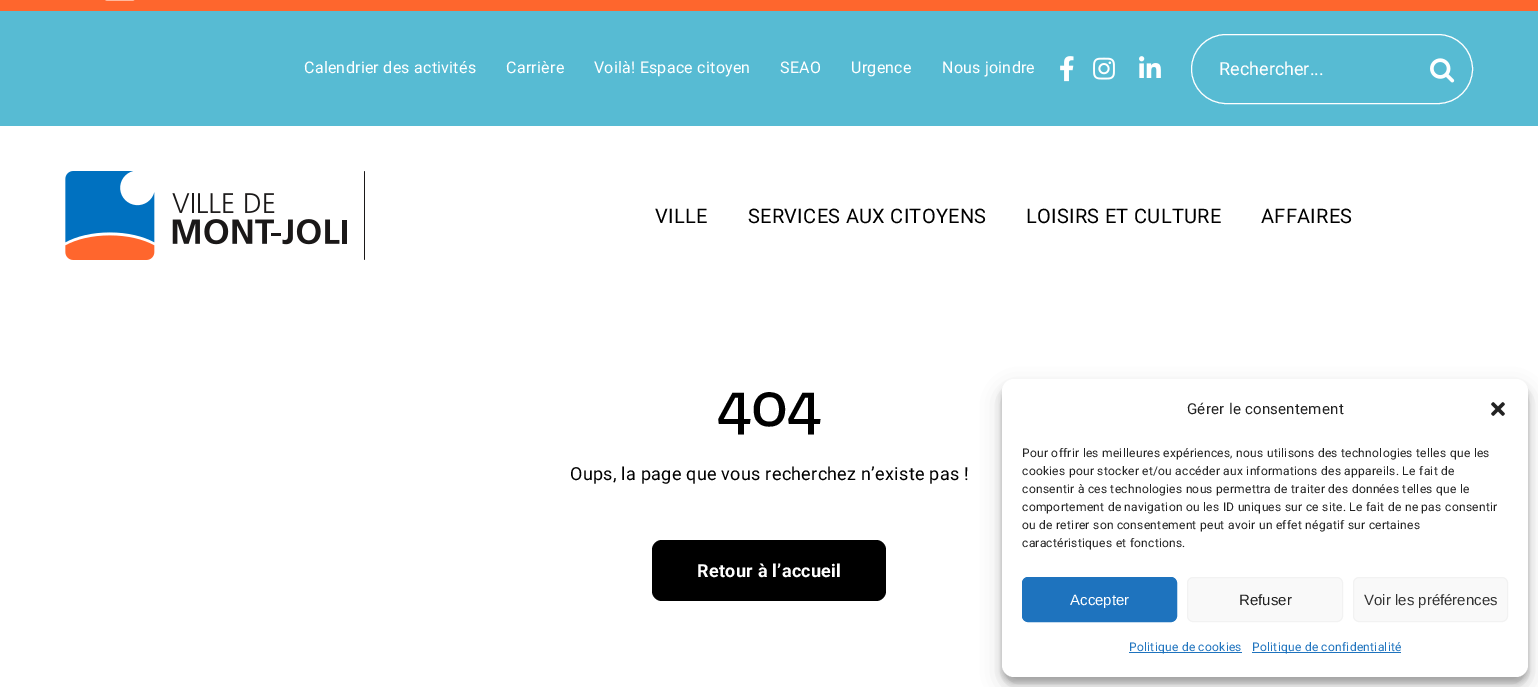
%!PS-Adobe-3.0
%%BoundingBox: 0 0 1538 687
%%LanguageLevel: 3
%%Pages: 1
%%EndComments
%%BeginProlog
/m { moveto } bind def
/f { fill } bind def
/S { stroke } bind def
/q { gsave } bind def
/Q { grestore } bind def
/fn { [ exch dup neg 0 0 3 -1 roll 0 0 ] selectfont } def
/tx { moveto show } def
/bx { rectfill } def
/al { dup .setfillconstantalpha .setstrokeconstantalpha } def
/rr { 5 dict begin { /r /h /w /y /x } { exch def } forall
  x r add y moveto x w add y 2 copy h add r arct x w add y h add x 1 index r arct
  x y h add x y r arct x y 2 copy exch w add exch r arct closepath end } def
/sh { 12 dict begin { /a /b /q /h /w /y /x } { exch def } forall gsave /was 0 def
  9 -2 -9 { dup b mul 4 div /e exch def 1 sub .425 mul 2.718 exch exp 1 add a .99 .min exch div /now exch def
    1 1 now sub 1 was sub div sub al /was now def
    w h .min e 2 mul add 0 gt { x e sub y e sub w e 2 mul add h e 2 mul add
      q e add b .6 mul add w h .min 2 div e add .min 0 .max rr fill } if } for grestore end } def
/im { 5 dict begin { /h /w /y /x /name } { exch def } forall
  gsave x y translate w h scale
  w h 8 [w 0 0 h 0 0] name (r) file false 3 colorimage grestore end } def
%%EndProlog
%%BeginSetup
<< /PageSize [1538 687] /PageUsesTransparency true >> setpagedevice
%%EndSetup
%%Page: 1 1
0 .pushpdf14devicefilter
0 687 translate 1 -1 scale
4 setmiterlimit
1 setgray
0 0 1538 687 bx
0.996 0.4 0.176 setrgbcolor
0 0 1538 11 bx
(image0.raw) 105 0 30 1 im
0.341 0.733 0.827 setrgbcolor
0 11 1538 115 bx
/Roboto-Regular 16 fn
1 setgray
304 73 m 0.25 0 (Calendrier des activités) ashow
506 73 m 0.25 0 (Carrière) ashow
594 73 m 0.25 0 (Voilà! Espace citoyen) ashow
780 73 m 0.25 0 (SEAO) ashow
851 73 m 0.25 0 (Urgence) ashow
942 73 m 0.25 0 (Nous joindre) ashow
(image1.raw) 1060 56 14 26 im
(image2.raw) 1093 57 22 23 im
(image3.raw) 1139 56 22 22 im
1191.5 34.5 281 69 34.5 rr S
/Roboto-Regular 18 fn
(Rechercher...) 1219 75 tx
(image4.raw) 1430 58 25 25 im
(image5.raw) 65 171 300 89 im
/Roboto-Regular 20 fn
0 setgray
655 223 m 0.3 0 (VILLE) ashow
748 223 m 0.3 0 (SERVICES AUX CITOYENS) ashow
1026 223 m 0.3 0 (LOISIRS ET CULTURE) ashow
1261 223 m 0.3 0 (AFFAIRES) ashow
/ZillaSlab-Medium 64 fn
717 426 m -1 0 (404) ashow
/Roboto-Regular 18 fn
570 480 m 0.27 0 (Oups, la page que vous recherchez n’existe pas !) ashow
652 540 234 61 10 rr f
/Roboto-Bold 18 fn
1 setgray
697 577 m 0.27 0 (Retour à l’accueil) ashow
0 setgray
1002 385 526 298 12 3 0.23 sh
1002 389 526 298 12 10 0.19 sh
1 setgray
1002 379 526 298 12 rr f
/Roboto-Regular 15 fn
0.133 setgray
1187 414 m 0.27 0 (Gérer le consentement) ashow
(image6.raw) 1491 402 14 14 im
/Roboto-Regular 12 fn
1022 457 m 0.27 0 (Pour offrir les meilleures expériences, nous utilisons des technologies telles que les) ashow
1022 475 m 0.27 0 (cookies pour stocker et/ou accéder aux informations des appareils. Le fait de) ashow
1022 493 m 0.27 0 (consentir à ces technologies nous permettra de traiter des données telles que le) ashow
1022 511 m 0.27 0 (comportement de navigation ou les ID uniques sur ce site. Le fait de ne pas consentir) ashow
1022 529 m 0.27 0 (ou de retirer son consentement peut avoir un effet négatif sur certaines) ashow
1022 547 m 0.27 0 (caractéristiques et fonctions.) ashow
0.118 0.451 0.745 setrgbcolor
1022.5 577.5 154 44 5.5 rr q f Q
S
/LiberationSans-Regular 15 fn
1 setgray
(Accepter) 1070 605 tx
0.976 setgray
1187.5 577.5 155 44 5.5 rr q f Q
0.949 setgray
S
0.133 setgray
(Refuser) 1239 605 tx
0.976 setgray
1353.5 577.5 154 44 5.5 rr q f Q
0.949 setgray
S
0.2 setgray
(Voir les préférences) 1364 605 tx
0.118 0.451 0.745 setrgbcolor
1129 652 113 1 bx
/Roboto-Regular 12 fn
1129 651 m 0.27 0 (Politique de cookies) ashow
1252 652 149 1 bx
1252 651 m 0.27 0 (Politique de confidentialité) ashow
.poppdf14devicefilter showpage
%%EOF
